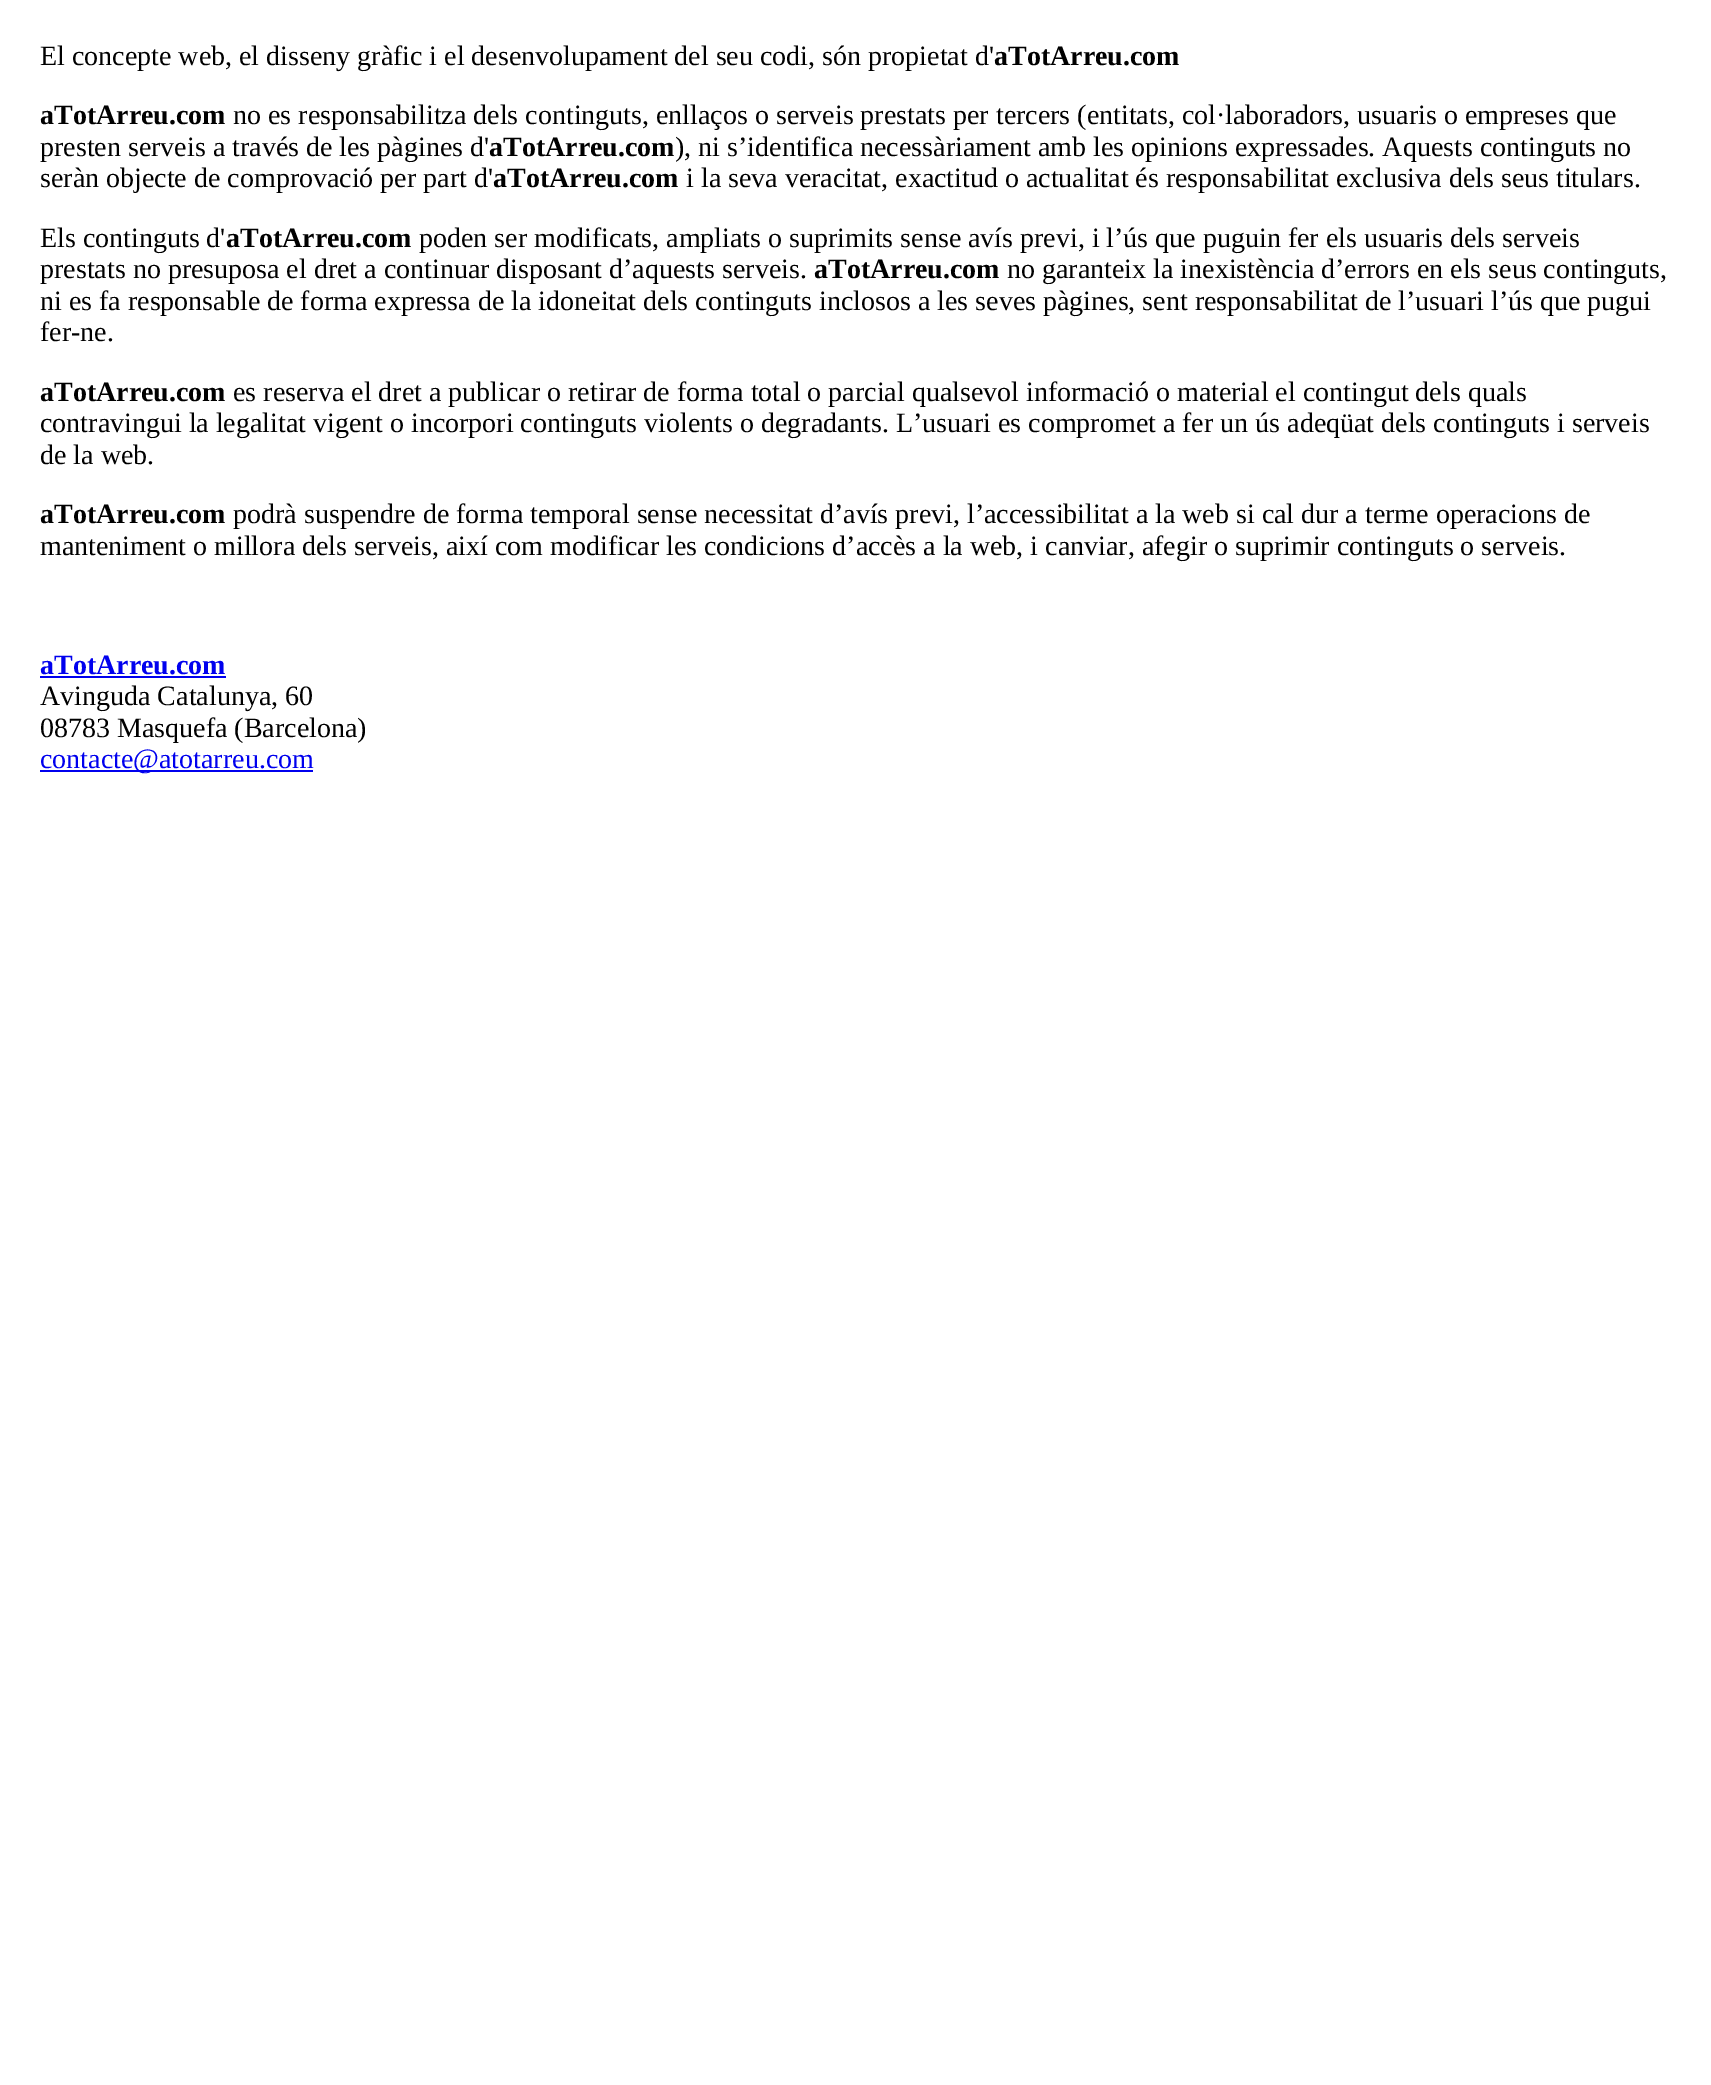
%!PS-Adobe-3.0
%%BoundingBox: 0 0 1711 2085
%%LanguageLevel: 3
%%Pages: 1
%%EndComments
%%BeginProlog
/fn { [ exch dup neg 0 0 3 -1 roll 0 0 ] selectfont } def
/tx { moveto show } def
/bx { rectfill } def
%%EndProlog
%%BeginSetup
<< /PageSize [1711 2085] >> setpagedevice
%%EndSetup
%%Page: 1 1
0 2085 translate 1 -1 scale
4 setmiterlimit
1 setgray
0 0 1711 2085 bx
/LiberationSerif-Regular 28 fn
0 setgray
(El concepte web, el disseny gràfic i el desenvolupament del seu codi, són propietat d') 40 65 tx
/LiberationSerif-Bold 28 fn
(aTotArreu.com) 994 65 tx
(aTotArreu.com) 40 124 tx
/LiberationSerif-Regular 28 fn
(no es responsabilitza dels continguts, enllaços o serveis prestats per tercers \(entitats, col·laboradors, usuaris o empreses que) 233 124 tx
(presten serveis a través de les pàgines d') 40 156 tx
/LiberationSerif-Bold 28 fn
(aTotArreu.com) 489 156 tx
/LiberationSerif-Regular 28 fn
(\), ni s’identifica necessàriament amb les opinions expressades. Aquests continguts no) 675 156 tx
(seràn objecte de comprovació per part d') 40 187 tx
/LiberationSerif-Bold 28 fn
(aTotArreu.com) 493 187 tx
/LiberationSerif-Regular 28 fn
(i la seva veracitat, exactitud o actualitat és responsabilitat exclusiva dels seus titulars.) 686 187 tx
(Els continguts d') 40 247 tx
/LiberationSerif-Bold 28 fn
(aTotArreu.com) 226 247 tx
/LiberationSerif-Regular 28 fn
(poden ser modificats, ampliats o suprimits sense avís previ, i l’ús que puguin fer els usuaris dels serveis) 419 247 tx
(prestats no presuposa el dret a continuar disposant d’aquests serveis.) 40 278 tx
/LiberationSerif-Bold 28 fn
(aTotArreu.com) 814 278 tx
/LiberationSerif-Regular 28 fn
(no garanteix la inexistència d’errors en els seus continguts,) 1007 278 tx
(ni es fa responsable de forma expressa de la idoneitat dels continguts inclosos a les seves pàgines, sent responsabilitat de l’usuari l’ús que pugui) 40 310 tx
(fer-ne.) 40 341 tx
/LiberationSerif-Bold 28 fn
(aTotArreu.com) 40 401 tx
/LiberationSerif-Regular 28 fn
(es reserva el dret a publicar o retirar de forma total o parcial qualsevol informació o material el contingut dels quals) 233 401 tx
(contravingui la legalitat vigent o incorpori continguts violents o degradants. L’usuari es compromet a fer un ús adeqüat dels continguts i serveis) 40 432 tx
(de la web.) 40 464 tx
/LiberationSerif-Bold 28 fn
(aTotArreu.com) 40 523 tx
/LiberationSerif-Regular 28 fn
(podrà suspendre de forma temporal sense necessitat d’avís previ, l’accessibilitat a la web si cal dur a terme operacions de) 233 523 tx
(manteniment o millora dels serveis, així com modificar les condicions d’accès a la web, i canviar, afegir o suprimir continguts o serveis.) 40 555 tx
/LiberationSerif-Bold 28 fn
0 0 0.933 setrgbcolor
(aTotArreu.com) 40 674 tx
40 676 186 2 bx
/LiberationSerif-Regular 28 fn
0 setgray
(Avinguda Catalunya, 60) 40 705 tx
(08783 Masquefa \(Barcelona\)) 40 737 tx
0 0 0.933 setrgbcolor
40 770 273 2 bx
(contacte@atotarreu.com) 40 768 tx
showpage
%%EOF
